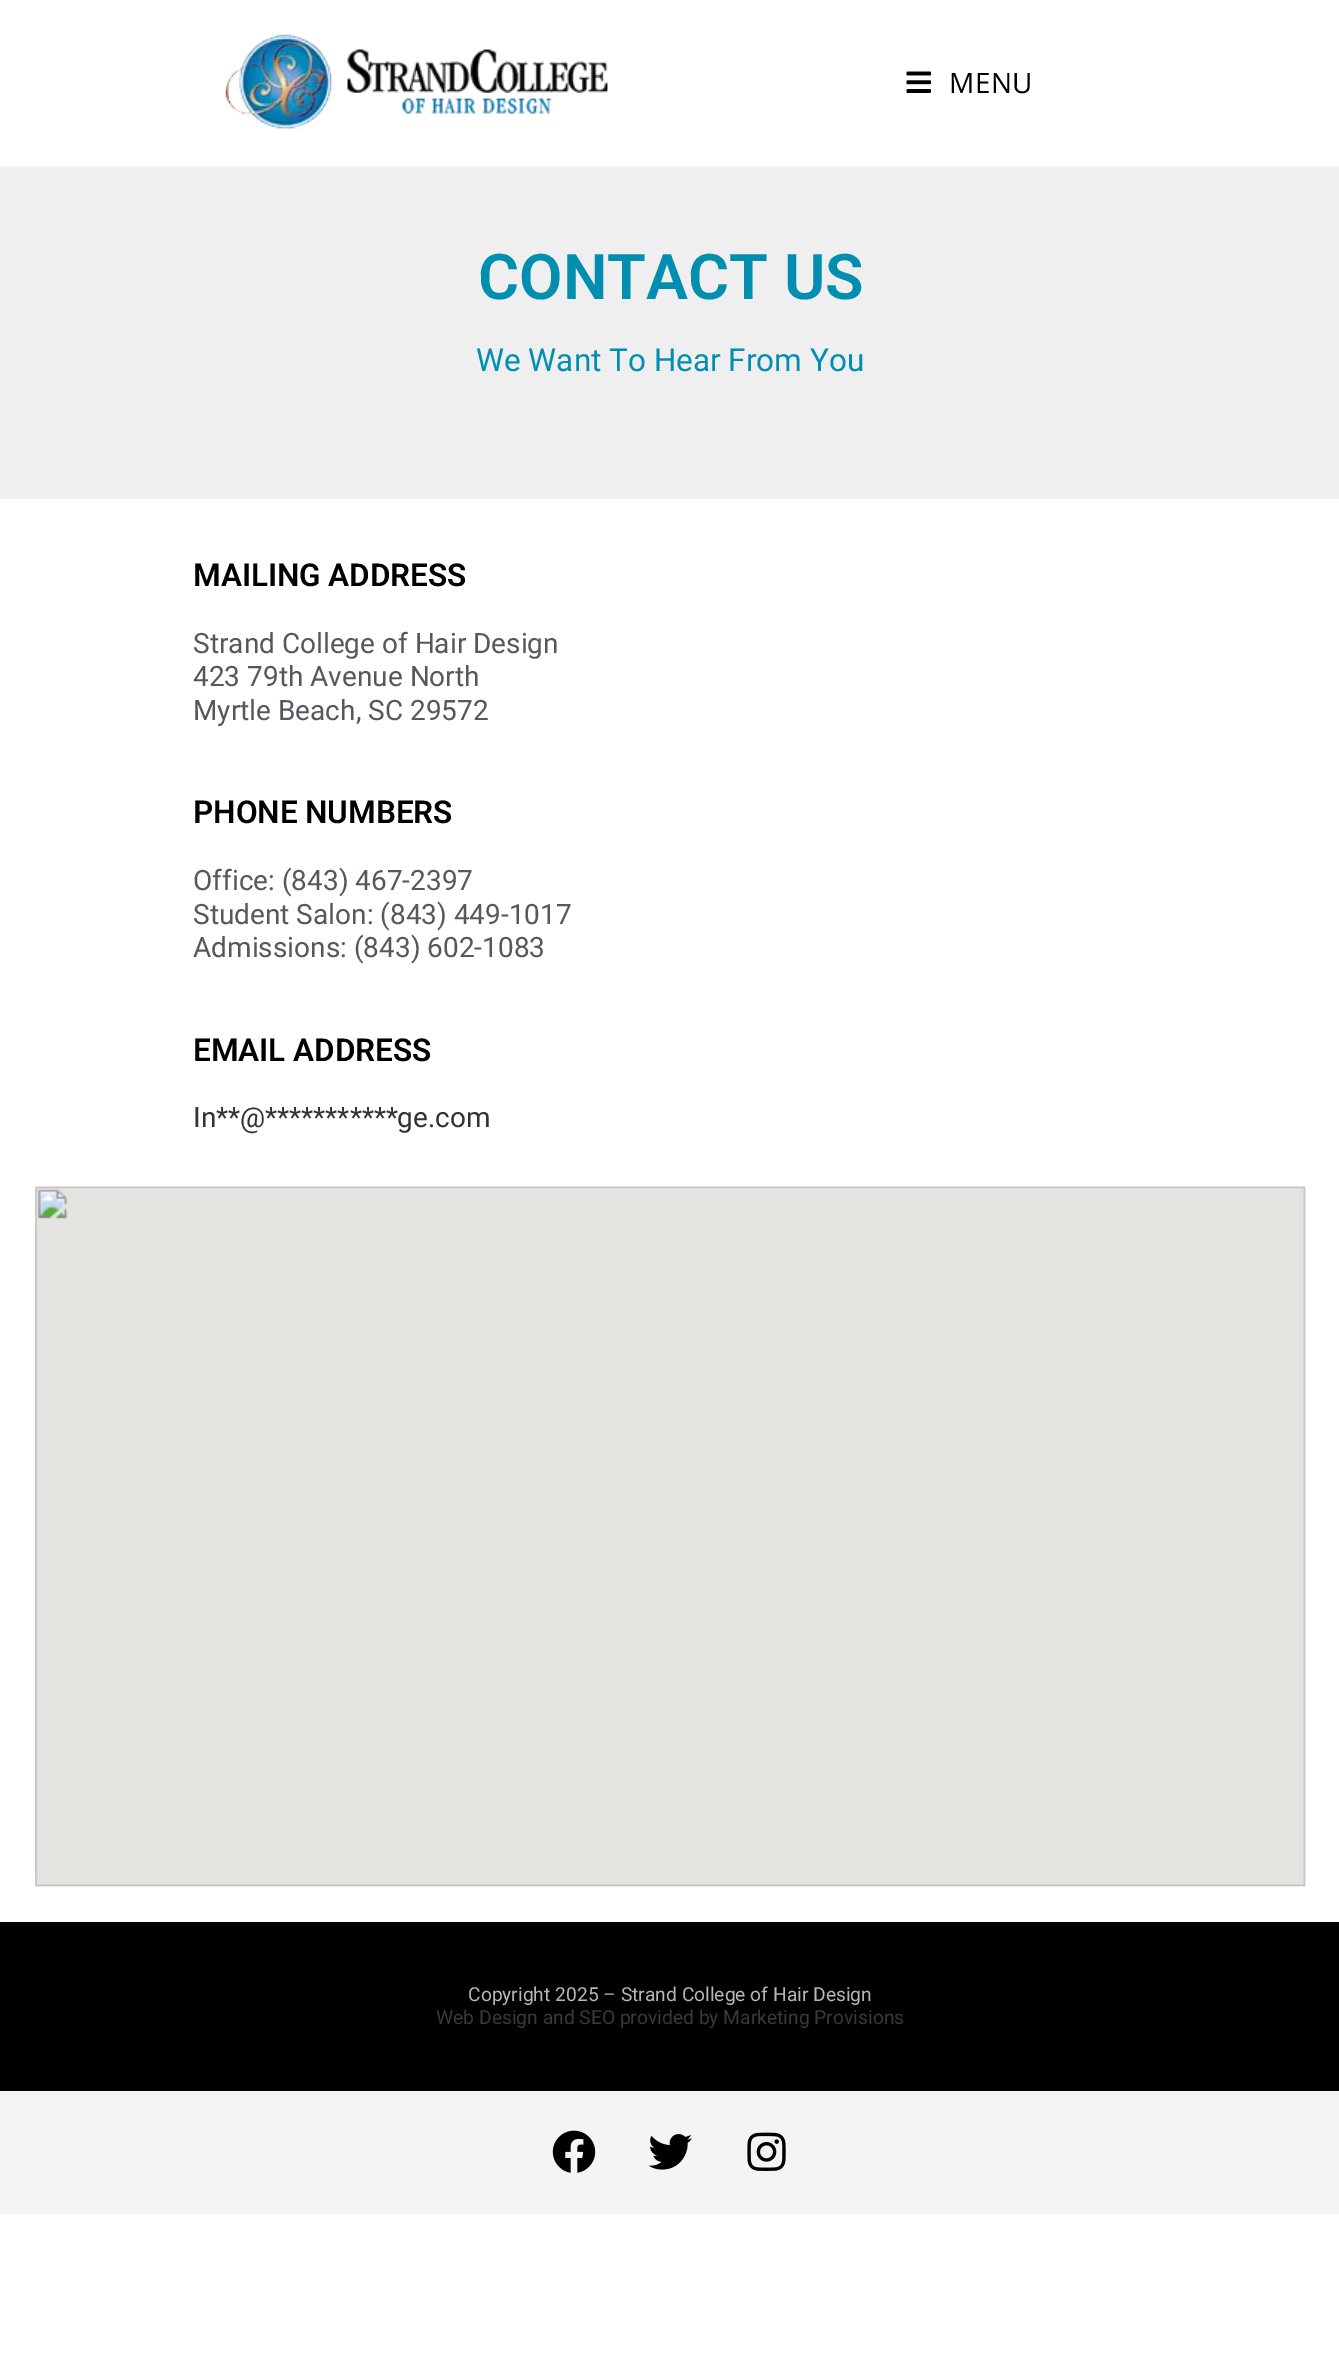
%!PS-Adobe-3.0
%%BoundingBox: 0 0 1339 2379
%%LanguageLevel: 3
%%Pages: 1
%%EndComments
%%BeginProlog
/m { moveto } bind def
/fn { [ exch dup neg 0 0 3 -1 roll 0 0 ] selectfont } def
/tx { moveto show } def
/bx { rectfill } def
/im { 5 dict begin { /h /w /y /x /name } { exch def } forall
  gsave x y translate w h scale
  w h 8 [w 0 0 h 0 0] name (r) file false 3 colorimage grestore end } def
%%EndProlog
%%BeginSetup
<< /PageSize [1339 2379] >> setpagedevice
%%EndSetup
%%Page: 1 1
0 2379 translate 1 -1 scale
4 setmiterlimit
1 setgray
0 0 1339 2379 bx
0.945 setgray
0 166 1339 2 bx
(image0.raw) 225 34 383 97 im
(image1.raw) 906 71 25 22 im
/OpenSans-Regular 28 fn
0 setgray
949 93 m 0.5 0 (MENU) ashow
0.937 setgray
0 168 1339 331 bx
/Roboto-SemiBold 63 fn
0.008 0.557 0.686 setrgbcolor
(CONTACT US) 478 299 tx
/Roboto-Regular 31.5 fn
(We Want To Hear From You) 476 371 tx
/Roboto-SemiBold 31.5 fn
0 setgray
(MAILING ADDRESS) 193 586 tx
/Roboto-Regular 28 fn
0.329 0.349 0.373 setrgbcolor
(Strand College of Hair Design) 193 653 tx
(423 79th Avenue North) 193 686 tx
(Myrtle Beach, SC 29572) 193 720 tx
/Roboto-SemiBold 31.5 fn
0 setgray
(PHONE NUMBERS) 193 823 tx
/Roboto-Regular 28 fn
0.329 0.349 0.373 setrgbcolor
(Office: \(843\) 467-2397) 193 890 tx
(Student Salon: \(843\) 449-1017) 193 924 tx
(Admissions: \(843\) 602-1083) 193 957 tx
/Roboto-SemiBold 31.5 fn
0 setgray
(EMAIL ADDRESS) 193 1061 tx
/Roboto-Regular 28 fn
0.2 setgray
(In**) 193 1127 tx
(@***********) 240 1127 tx
(ge.com) 397 1127 tx
(image2.raw) 35 1186 1271 701 im
0 setgray
0 1922 1339 169 bx
/Roboto-Regular 19.25 fn
0.718 setgray
(Copyright 2025 – Strand College of Hair Design) 468 2001 tx
0.224 setgray
(Web Design and SEO provided by Marketing Provisions) 436 2024 tx
0.957 setgray
0 2091 1339 123 bx
(image3.raw) 552 2130 44 43 im
(image4.raw) 648 2134 44 36 im
(image5.raw) 747 2132 39 39 im
showpage
%%EOF
